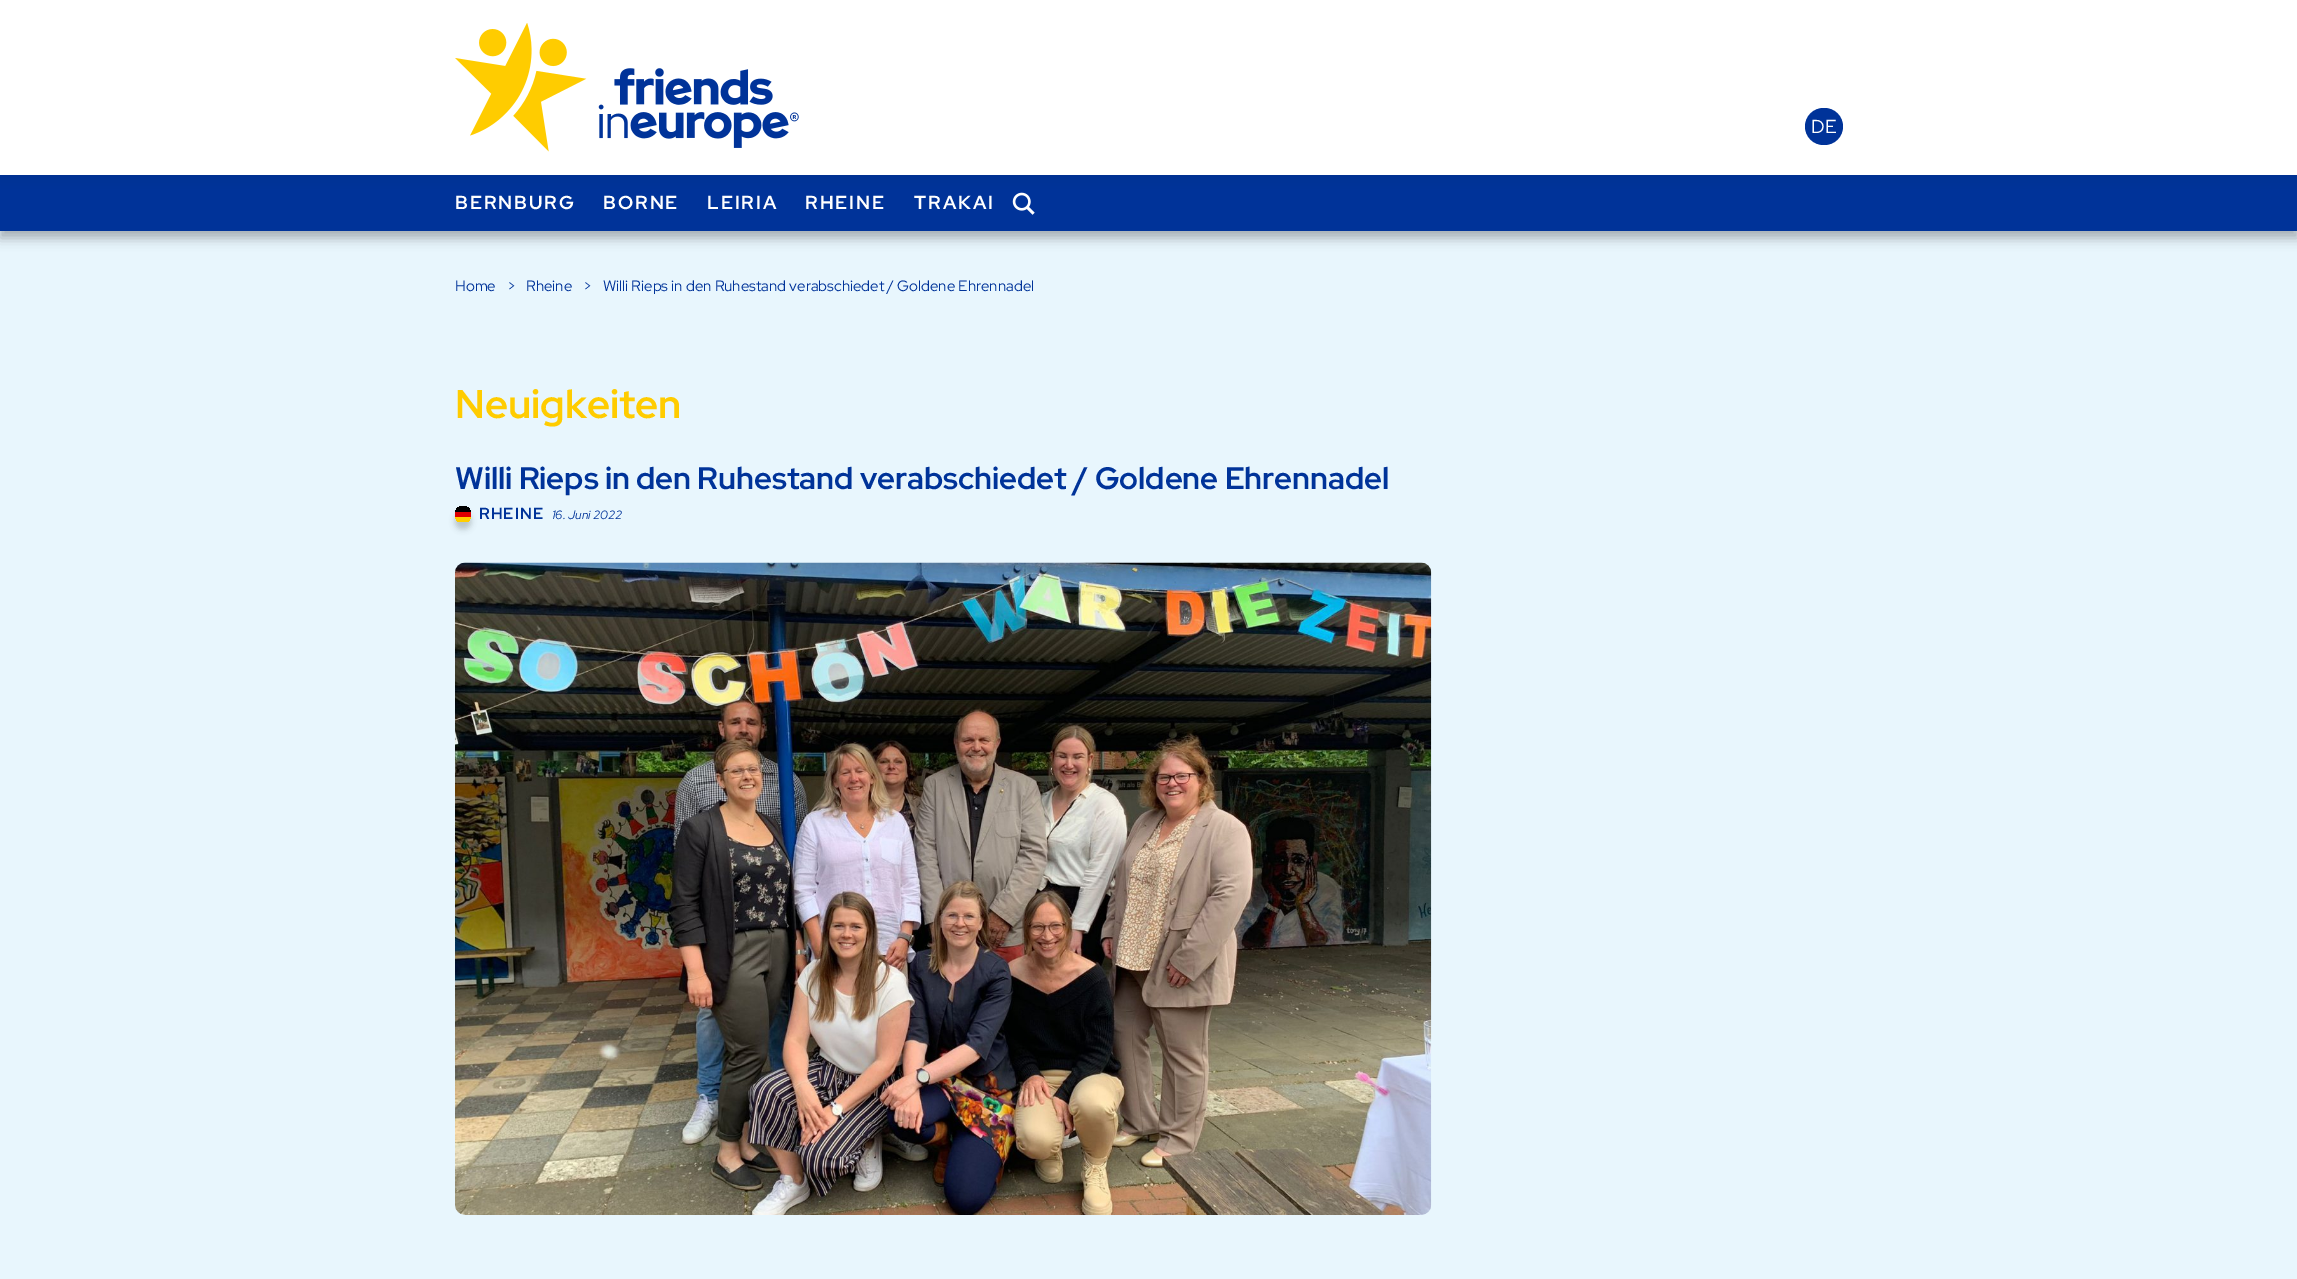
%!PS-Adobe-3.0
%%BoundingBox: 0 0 2297 1279
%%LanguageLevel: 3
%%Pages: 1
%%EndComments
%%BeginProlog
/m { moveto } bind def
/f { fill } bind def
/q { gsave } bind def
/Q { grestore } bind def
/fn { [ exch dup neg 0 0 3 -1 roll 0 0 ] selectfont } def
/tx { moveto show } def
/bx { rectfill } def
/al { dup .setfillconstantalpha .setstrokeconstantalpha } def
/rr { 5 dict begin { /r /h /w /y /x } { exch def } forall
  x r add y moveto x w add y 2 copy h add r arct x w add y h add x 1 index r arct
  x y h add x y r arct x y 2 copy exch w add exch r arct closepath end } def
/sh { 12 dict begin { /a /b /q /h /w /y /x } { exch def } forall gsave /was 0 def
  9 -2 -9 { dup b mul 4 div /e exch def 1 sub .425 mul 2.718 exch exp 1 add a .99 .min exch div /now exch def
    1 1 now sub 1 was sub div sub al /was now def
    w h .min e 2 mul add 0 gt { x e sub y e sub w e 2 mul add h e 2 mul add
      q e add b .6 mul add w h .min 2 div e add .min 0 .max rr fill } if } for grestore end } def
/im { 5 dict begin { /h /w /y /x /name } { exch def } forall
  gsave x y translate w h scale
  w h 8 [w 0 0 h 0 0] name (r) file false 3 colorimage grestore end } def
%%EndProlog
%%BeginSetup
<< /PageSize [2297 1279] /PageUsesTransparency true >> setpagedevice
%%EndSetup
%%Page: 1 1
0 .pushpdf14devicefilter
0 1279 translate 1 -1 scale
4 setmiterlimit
0.91 0.965 0.992 setrgbcolor
0 0 2297 1279 bx
0 setgray
0 181 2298 57 0 6 0.3 sh
0 0.2 0.6 setrgbcolor
0 175 2297 56 bx
0 setgray
0 0 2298 175 0 6 0.1 sh
1 setgray
0 0 2297 175 bx
(image0.raw) 455 23 344 129 im
0 0.2 0.6 setrgbcolor
1805 108 38 37 18.5 rr f
/RedHatDisplay-Regular 18.75 fn
1 setgray
(DE) 1811 133 tx
/RedHatDisplay-Bold 18.75 fn
455 209 m 2 0 (BERNBURG) ashow
603 209 m 2 0 (BORNE) ashow
707 209 m 2 0 (LEIRIA) ashow
805 209 m 2 0 (RHEINE) ashow
914 209 m 2 0 (TRAKAI) ashow
(image1.raw) 1012 192 23 23 im
/RedHatDisplay-Regular 15 fn
0 0.2 0.6 setrgbcolor
(Home) 455 291 tx
(>) 507 291 tx
(Rheine) 526 291 tx
(>) 583 291 tx
(Willi Rieps in den Ruhestand verabschiedet / Goldene Ehrennadel) 603 291 tx
/RedHatDisplay-Bold 40 fn
1 0.8 0 setrgbcolor
(Neuigkeiten) 455 418 tx
/RedHatDisplay-Bold 31 fn
0 0.2 0.6 setrgbcolor
(Willi Rieps in den Ruhestand verabschiedet / Goldene Ehrennadel) 455 489 tx
0 setgray
455 513 16 16 8 3 0.2 sh
q
455 506 16 17 8 rr clip newpath
1 0.808 0 setrgbcolor
455 517 16 5 bx
0 setgray
455 506 16 6 bx
0.867 0 0 setrgbcolor
455 512 16 5 bx
Q
/RedHatDisplay-Bold 16 fn
0 0.2 0.6 setrgbcolor
479 519 m 1 0 (RHEINE) ashow
/RedHatDisplay-Italic 12 fn
(16. Juni 2022) 552 519 tx
(image2.raw) 455 562 977 653 im
.poppdf14devicefilter showpage
%%EOF
